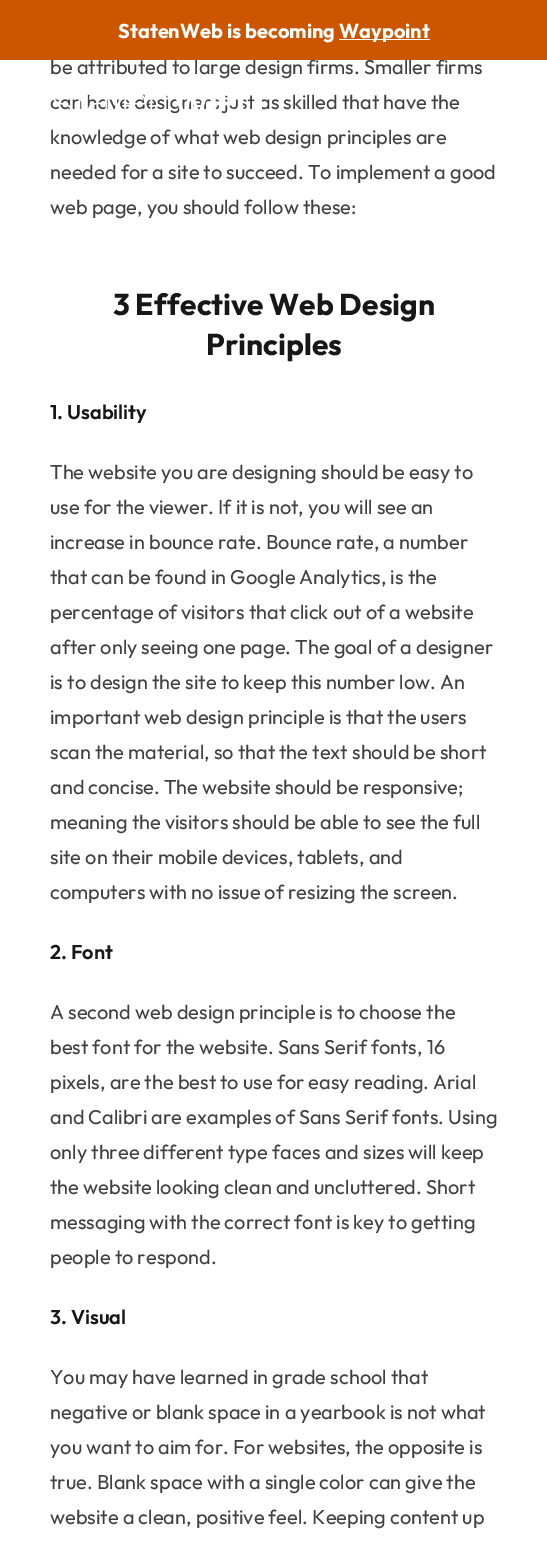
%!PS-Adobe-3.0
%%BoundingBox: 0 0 547 1550
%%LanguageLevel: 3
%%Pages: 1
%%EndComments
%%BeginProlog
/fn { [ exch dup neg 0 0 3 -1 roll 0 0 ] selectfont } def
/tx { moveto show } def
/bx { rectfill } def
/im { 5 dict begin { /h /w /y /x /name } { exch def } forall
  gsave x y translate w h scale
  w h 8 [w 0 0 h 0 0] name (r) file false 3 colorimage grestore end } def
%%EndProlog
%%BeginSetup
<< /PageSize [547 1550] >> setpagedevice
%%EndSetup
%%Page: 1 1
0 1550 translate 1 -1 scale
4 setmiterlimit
1 setgray
0 0 547 1550 bx
/Outfit-Regular 20 fn
0.251 setgray
(be attributed to large design firms. Smaller firms) 50 74 tx
0.8 0.333 0 setrgbcolor
0 0 547 60 bx
/Outfit-Bold 20 fn
1 setgray
(StatenWeb is becoming) 118 38 tx
339 39 91 1 bx
(Waypoint) 339 38 tx
/Outfit-Regular 20 fn
0.251 setgray
(can have designers just as skilled that have the) 50 109 tx
(knowledge of what web design principles are) 50 144 tx
(needed for a site to succeed. To implement a good) 50 179 tx
(web page, you should follow these:) 50 214 tx
/Outfit-Bold 30 fn
0.09 setgray
(3 Effective Web Design) 113 315 tx
(Principles) 206 355 tx
/Outfit-SemiBold 20 fn
(1. Usability) 50 419 tx
/Outfit-Regular 20 fn
0.251 setgray
(The website you are designing should be easy to) 50 479 tx
(use for the viewer. If it is not, you will see an) 50 514 tx
(increase in bounce rate. Bounce rate, a number) 50 549 tx
(that can be found in Google Analytics, is the) 50 584 tx
(percentage of visitors that click out of a website) 50 619 tx
(after only seeing one page. The goal of a designer) 50 654 tx
(is to design the site to keep this number low. An) 50 689 tx
(important web design principle is that the users) 50 724 tx
(scan the material, so that the text should be short) 50 759 tx
(and concise. The website should be responsive;) 50 794 tx
(meaning the visitors should be able to see the full) 50 829 tx
(site on their mobile devices, tablets, and) 50 864 tx
(computers with no issue of resizing the screen.) 50 899 tx
/Outfit-SemiBold 20 fn
0.09 setgray
(2. Font) 50 959 tx
/Outfit-Regular 20 fn
0.251 setgray
(A second web design principle is to choose the) 50 1019 tx
(best font for the website. Sans Serif fonts, 16) 50 1054 tx
(pixels, are the best to use for easy reading. Arial) 50 1089 tx
(and Calibri are examples of Sans Serif fonts. Using) 50 1124 tx
(only three different type faces and sizes will keep) 50 1159 tx
(the website looking clean and uncluttered. Short) 50 1194 tx
(messaging with the correct font is key to getting) 50 1229 tx
(people to respond.) 50 1264 tx
/Outfit-SemiBold 20 fn
0.09 setgray
(3. Visual) 50 1324 tx
/Outfit-Regular 20 fn
0.251 setgray
(You may have learned in grade school that) 50 1384 tx
(negative or blank space in a yearbook is not what) 50 1419 tx
(you want to aim for. For websites, the opposite is) 50 1454 tx
(true. Blank space with a single color can give the) 50 1489 tx
(website a clean, positive feel. Keeping content up) 50 1524 tx
(image0.raw) 52 94 211 20 im
showpage
%%EOF
